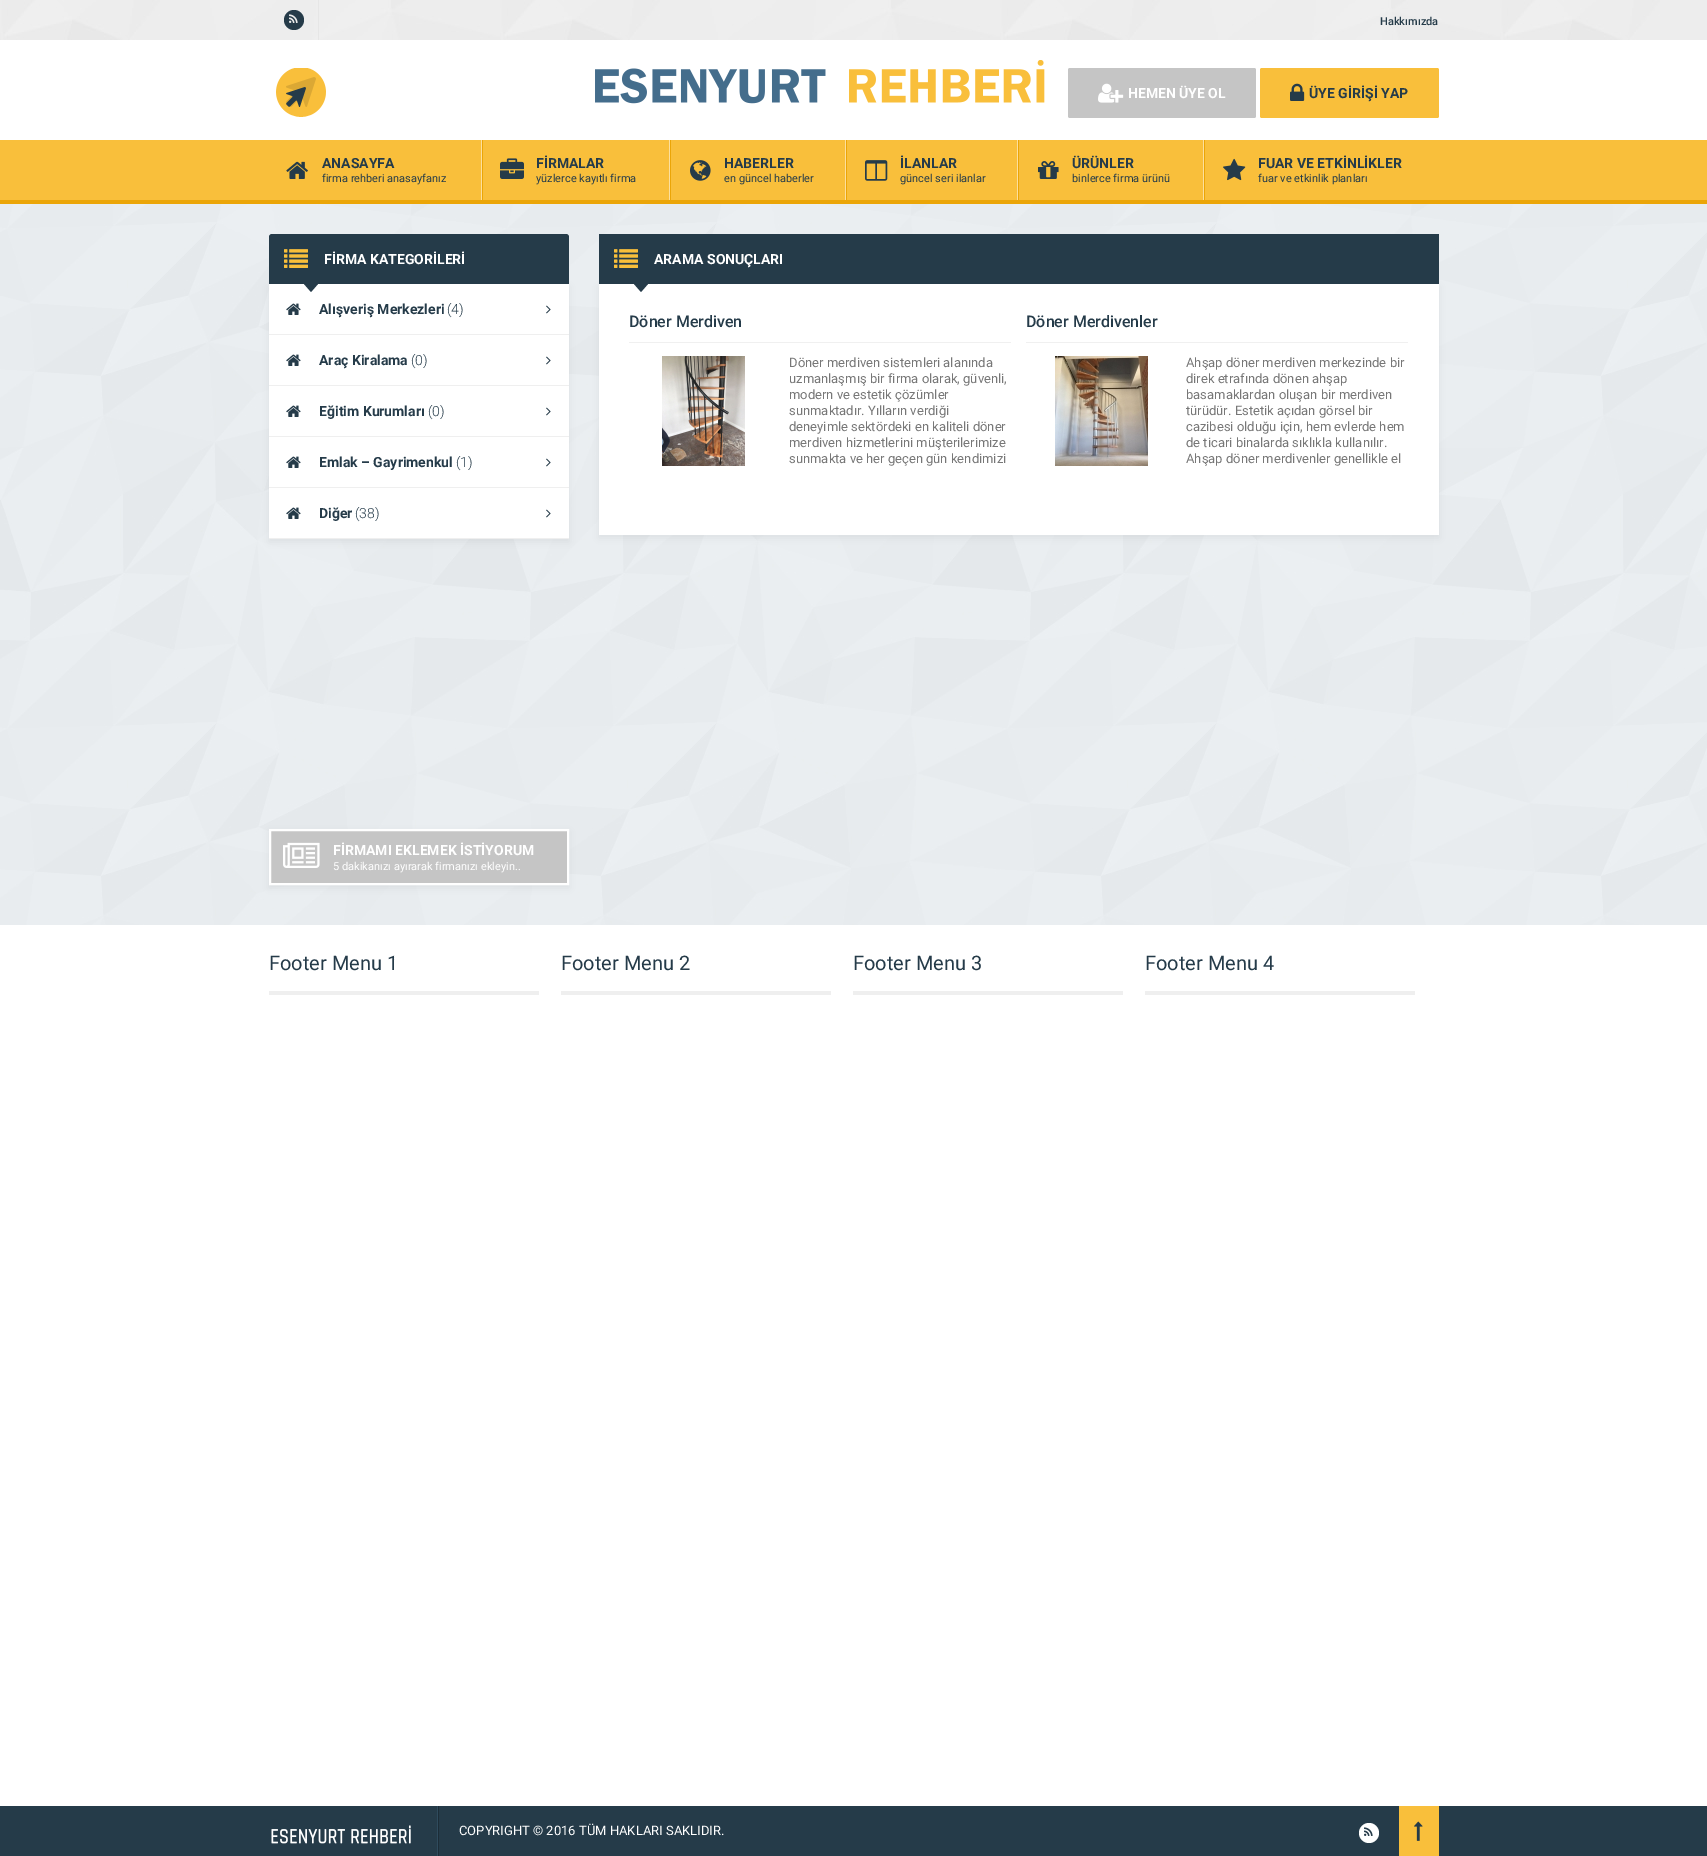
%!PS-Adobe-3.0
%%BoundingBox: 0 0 1707 1856
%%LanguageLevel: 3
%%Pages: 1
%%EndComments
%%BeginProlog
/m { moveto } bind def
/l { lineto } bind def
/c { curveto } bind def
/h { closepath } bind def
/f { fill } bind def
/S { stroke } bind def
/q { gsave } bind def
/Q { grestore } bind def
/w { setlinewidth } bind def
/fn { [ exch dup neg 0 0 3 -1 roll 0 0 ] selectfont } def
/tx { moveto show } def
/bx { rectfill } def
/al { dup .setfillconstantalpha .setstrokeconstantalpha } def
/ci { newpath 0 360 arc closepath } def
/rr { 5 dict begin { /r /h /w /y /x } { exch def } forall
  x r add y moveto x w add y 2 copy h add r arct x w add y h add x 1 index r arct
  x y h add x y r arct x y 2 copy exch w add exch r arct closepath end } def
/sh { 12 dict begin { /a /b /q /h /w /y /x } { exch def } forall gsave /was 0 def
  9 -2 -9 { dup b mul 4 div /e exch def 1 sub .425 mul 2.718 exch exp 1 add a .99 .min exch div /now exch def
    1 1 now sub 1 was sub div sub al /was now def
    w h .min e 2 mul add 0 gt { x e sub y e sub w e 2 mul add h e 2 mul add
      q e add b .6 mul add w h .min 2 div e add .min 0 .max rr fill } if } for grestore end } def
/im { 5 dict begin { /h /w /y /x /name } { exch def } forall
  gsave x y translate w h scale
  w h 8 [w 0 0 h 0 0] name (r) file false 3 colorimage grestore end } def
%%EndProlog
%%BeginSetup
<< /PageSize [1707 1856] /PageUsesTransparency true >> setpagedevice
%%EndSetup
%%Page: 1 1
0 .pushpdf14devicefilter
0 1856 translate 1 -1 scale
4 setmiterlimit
1 setgray
0 0 1707 1856 bx
(image0.raw) 0 204 1707 721 im
(image1.raw) 0 0 1707 40 im
0.902 setgray
318 0 1 40 bx
0.145 0.231 0.286 setrgbcolor
294 20 10 ci f
(image2.raw) 289 14 9 9 im
/Roboto-Medium 11 fn
(Hakkımızda) 1380 25 tx
(image3.raw) 276 68 50 49 im
(image4.raw) 595 60 450 44 im
0.773 setgray
1068 68 188 50 2 rr f
(image5.raw) 1098 83 26 20 im
/Roboto-Bold 14 fn
1 setgray
(HEMEN ÜYE OL) 1128 98 tx
0.976 0.749 0.231 setrgbcolor
1260 68 179 50 2 rr f
(image6.raw) 1290 83 15 18 im
0.145 0.231 0.286 setrgbcolor
(ÜYE GİRİŞİ YAP) 1309 98 tx
0.976 0.749 0.231 setrgbcolor
0 140 1707 60 bx
0.922 0.647 0.027 setrgbcolor
0 200 1707 4 bx
0.988 0.875 0.62 setrgbcolor
481 140 1 60 bx
(image7.raw) 286 161 22 18 im
0.145 0.231 0.286 setrgbcolor
(ANASAYFA) 322 168 tx
/Roboto-Regular 11 fn
(firma rehberi anasayfanız) 322 182 tx
0.988 0.875 0.62 setrgbcolor
669 140 1 60 bx
0.922 0.647 0.027 setrgbcolor
482 140 1 60 bx
(image8.raw) 500 158 24 21 im
/Roboto-Bold 14 fn
0.145 0.231 0.286 setrgbcolor
(FİRMALAR) 536 168 tx
/Roboto-Regular 11 fn
(yüzlerce kayıtlı firma) 536 182 tx
0.988 0.875 0.62 setrgbcolor
845 140 1 60 bx
0.922 0.647 0.027 setrgbcolor
670 140 1 60 bx
(image9.raw) 690 160 21 21 im
/Roboto-Bold 14 fn
0.145 0.231 0.286 setrgbcolor
(HABERLER) 724 168 tx
/Roboto-Regular 11 fn
(en güncel haberler) 724 182 tx
0.988 0.875 0.62 setrgbcolor
1017 140 1 60 bx
0.922 0.647 0.027 setrgbcolor
846 140 1 60 bx
(image10.raw) 865 160 23 21 im
/Roboto-Bold 14 fn
0.145 0.231 0.286 setrgbcolor
(İLANLAR) 900 168 tx
/Roboto-Regular 11 fn
(güncel seri ilanlar) 900 182 tx
0.988 0.875 0.62 setrgbcolor
1203 140 1 60 bx
0.922 0.647 0.027 setrgbcolor
1018 140 1 60 bx
(image11.raw) 1038 161 21 18 im
/Roboto-Bold 14 fn
0.145 0.231 0.286 setrgbcolor
(ÜRÜNLER) 1072 168 tx
/Roboto-Regular 11 fn
(binlerce firma ürünü) 1072 182 tx
0.922 0.647 0.027 setrgbcolor
1204 140 1 60 bx
(image12.raw) 1223 158 23 23 im
/Roboto-Bold 14 fn
0.145 0.231 0.286 setrgbcolor
(FUAR VE ETKİNLİKLER) 1258 168 tx
/Roboto-Regular 11 fn
(fuar ve etkinlik planları) 1258 182 tx
0 setgray
269 287 300 255 0 4 0.06 sh
0.145 0.231 0.286 setrgbcolor
272 234 m 566 234 l 567.5 234 569 235.5 569 237 c 569 284 l 269 284 l 269 237 l 269 235.5 270.5 234 272 234 c h f
(image13.raw) 284 249 24 19 im
/Roboto-Bold 14 fn
1 setgray
(FİRMA KATEGORİLERİ) 324 264 tx
269 284 300 254 bx
0.145 0.231 0.286 setrgbcolor
304 284 m 318 284 l 311 292 l h f
0.937 setgray
269 334 300 1 bx
(image14.raw) 286 303 15 12 im
0.145 0.231 0.286 setrgbcolor
(Alışveriş Merkezleri) 319 314 tx
/Roboto-Light 14 fn
(\(4\)) 447 314 tx
(image15.raw) 546 305 5 9 im
0.937 setgray
269 385 300 1 bx
(image14.raw) 286 354 15 12 im
/Roboto-Bold 14 fn
0.145 0.231 0.286 setrgbcolor
(Araç Kiralama) 319 365 tx
/Roboto-Light 14 fn
(\(0\)) 411 365 tx
(image15.raw) 546 356 5 9 im
0.937 setgray
269 436 300 1 bx
(image14.raw) 286 405 15 12 im
/Roboto-Bold 14 fn
0.145 0.231 0.286 setrgbcolor
(Eğitim Kurumları) 319 416 tx
/Roboto-Light 14 fn
(\(0\)) 428 416 tx
(image15.raw) 546 407 5 9 im
0.937 setgray
269 487 300 1 bx
(image14.raw) 286 456 15 12 im
/Roboto-Bold 14 fn
0.145 0.231 0.286 setrgbcolor
(Emlak – Gayrimenkul) 319 467 tx
/Roboto-Light 14 fn
(\(1\)) 456 467 tx
(image15.raw) 546 458 5 9 im
0.937 setgray
269 538 300 1 bx
(image14.raw) 286 507 15 12 im
/Roboto-Bold 14 fn
0.145 0.231 0.286 setrgbcolor
(Diğer) 319 518 tx
/Roboto-Light 14 fn
(\(38\)) 355 518 tx
(image15.raw) 546 509 5 9 im
0 setgray
269 832 300 56 0 4 0.06 sh
0.773 setgray
270 830 m 568 830 l 568 884 l 270 884 l h q f Q
1 setgray
2 w
S
(image16.raw) 283 842 37 26 im
/Roboto-Bold 14 fn
(FİRMAMI EKLEMEK İSTİYORUM) 333 855 tx
/Roboto-Regular 11 fn
(5 dakikanızı ayırarak firmanızı ekleyin..) 333 870 tx
0 setgray
599 287 840 251 0 4 0.06 sh
0.145 0.231 0.286 setrgbcolor
599 234 840 50 bx
(image13.raw) 614 249 24 19 im
/Roboto-Bold 14 fn
1 setgray
(ARAMA SONUÇLARI) 654 264 tx
599 284 840 251 bx
0.145 0.231 0.286 setrgbcolor
634 284 m 648 284 l 641 292 l h f
0.941 setgray
629 342 382 1 bx
/Roboto-Medium 16 fn
0.145 0.231 0.286 setrgbcolor
(Döner Merdiven) 629 327 tx
(image17.raw) 662 356 83 110 im
/Roboto-Regular 13 fn
0.467 setgray
(Döner merdiven sistemleri alanında) 789 367 tx
(uzmanlaşmış bir firma olarak, güvenli,) 789 383 tx
(modern ve estetik çözümler) 789 399 tx
(sunmaktadır. Yılların verdiği) 789 415 tx
(deneyimle sektördeki en kaliteli döner) 789 431 tx
(merdiven hizmetlerini müşterilerimize) 789 447 tx
(sunmakta ve her geçen gün kendimizi) 789 463 tx
0.941 setgray
1026 342 382 1 bx
/Roboto-Medium 16 fn
0.145 0.231 0.286 setrgbcolor
(Döner Merdivenler) 1026 327 tx
(image18.raw) 1055 356 93 110 im
/Roboto-Regular 13 fn
0.467 setgray
(Ahşap döner merdiven merkezinde bir) 1186 367 tx
(direk etrafında dönen ahşap) 1186 383 tx
(basamaklardan oluşan bir merdiven) 1186 399 tx
(türüdür. Estetik açıdan görsel bir) 1186 415 tx
(cazibesi olduğu için, hem evlerde hem) 1186 431 tx
(de ticari binalarda sıklıkla kullanılır.) 1186 447 tx
(Ahşap döner merdivenler genellikle el) 1186 463 tx
0.937 setgray
269 991 270 4 bx
/Roboto-Regular 20 fn
0.145 0.231 0.286 setrgbcolor
(Footer Menu 1) 269 970 tx
0.937 setgray
561 991 270 4 bx
0.145 0.231 0.286 setrgbcolor
(Footer Menu 2) 561 970 tx
0.937 setgray
853 991 270 4 bx
0.145 0.231 0.286 setrgbcolor
(Footer Menu 3) 853 970 tx
0.937 setgray
1145 991 270 4 bx
0.145 0.231 0.286 setrgbcolor
(Footer Menu 4) 1145 970 tx
0 1806 1707 50 bx
0.184 0.294 0.365 setrgbcolor
437 1806 1 50 bx
(image19.raw) 271 1825 140 19 im
0.11 0.176 0.22 setrgbcolor
438 1806 1 50 bx
/Roboto-Regular 13 fn
1 setgray
(COPYRIGHT © 2016 TÜM HAKLARI SAKLIDIR.) 459 1835 tx
1369 1833 10 ci f
(image20.raw) 1364 1827 9 9 im
0.976 0.749 0.231 setrgbcolor
1399 1806 40 50 bx
(image21.raw) 1414 1821 9 20 im
.poppdf14devicefilter showpage
%%EOF
